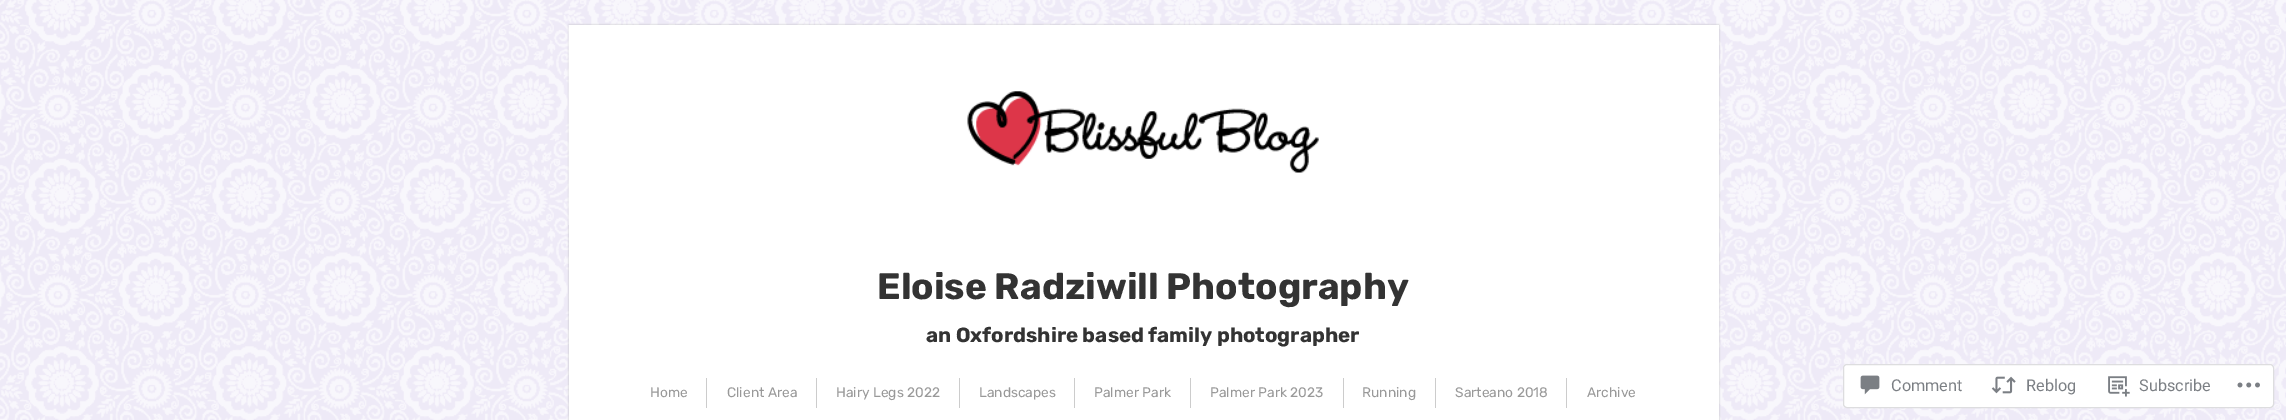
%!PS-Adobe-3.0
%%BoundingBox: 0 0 2286 420
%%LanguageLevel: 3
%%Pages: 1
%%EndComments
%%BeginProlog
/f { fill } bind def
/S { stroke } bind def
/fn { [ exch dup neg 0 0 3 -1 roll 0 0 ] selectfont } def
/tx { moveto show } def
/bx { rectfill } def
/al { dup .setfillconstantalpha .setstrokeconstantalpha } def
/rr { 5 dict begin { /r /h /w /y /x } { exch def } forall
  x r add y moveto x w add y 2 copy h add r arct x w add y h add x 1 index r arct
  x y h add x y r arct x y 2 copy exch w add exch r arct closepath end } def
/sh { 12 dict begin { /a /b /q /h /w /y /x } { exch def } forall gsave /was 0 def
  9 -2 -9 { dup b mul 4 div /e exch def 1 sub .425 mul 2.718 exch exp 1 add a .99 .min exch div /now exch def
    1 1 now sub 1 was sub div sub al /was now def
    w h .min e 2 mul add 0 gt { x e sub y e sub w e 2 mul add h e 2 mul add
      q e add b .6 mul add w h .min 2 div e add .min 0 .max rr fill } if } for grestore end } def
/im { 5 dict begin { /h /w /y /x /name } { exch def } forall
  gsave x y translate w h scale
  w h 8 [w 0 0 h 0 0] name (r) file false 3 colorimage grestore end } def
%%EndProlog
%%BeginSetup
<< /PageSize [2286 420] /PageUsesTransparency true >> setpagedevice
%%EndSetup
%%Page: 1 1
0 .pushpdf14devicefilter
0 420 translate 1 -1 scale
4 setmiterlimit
0.933 0.918 0.969 setrgbcolor
0 0 2286 420 bx
(image0.raw) 0 0 2286 420 im
0.733 setgray
569 25 1150 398 0 1 1 sh
1 setgray
569 25 1150 395 bx
(image1.raw) 568 25 751 200 im
/Rubik-Bold 36.9 fn
0.2 setgray
(Eloise Radziwill Photography) 877 299 tx
/Rubik-Bold 20.5 fn
(an Oxfordshire based family photographer) 926 342 tx
/Rubik-Regular 13.75 fn
0.6 setgray
(Home) 650 397 tx
0.8 setgray
706 378 1 30 bx
0.6 setgray
(Client Area) 727 397 tx
0.8 setgray
816 378 1 30 bx
0.6 setgray
(Hairy Legs 2022) 836 397 tx
0.8 setgray
959 378 1 30 bx
0.6 setgray
(Landscapes) 979 397 tx
0.8 setgray
1074 378 1 30 bx
0.6 setgray
(Palmer Park) 1094 397 tx
0.8 setgray
1190 378 1 30 bx
0.6 setgray
(Palmer Park 2023) 1210 397 tx
0.8 setgray
1343 378 1 30 bx
0.6 setgray
(Running) 1362 397 tx
0.8 setgray
1435 378 1 30 bx
0.6 setgray
(Sarteano 2018) 1455 397 tx
0.8 setgray
1566 378 1 30 bx
0.6 setgray
(Archive) 1587 397 tx
0.98 al
1 setgray
1843 364 431 44 4 rr f
0.863 0.863 0.871 setrgbcolor
1843.5 364.5 430 43 3.5 rr S
1 al
(image2.raw) 1860 375 20 20 im
/Roboto-Regular 16.25 fn
0.482 0.498 0.518 setrgbcolor
(Comment) 1891 391 tx
(image3.raw) 1991 376 25 18 im
(Reblog) 2026 391 tx
(image4.raw) 2108 376 22 21 im
(Subscribe) 2139 391 tx
(image5.raw) 2237 382 23 6 im
.poppdf14devicefilter showpage
%%EOF
